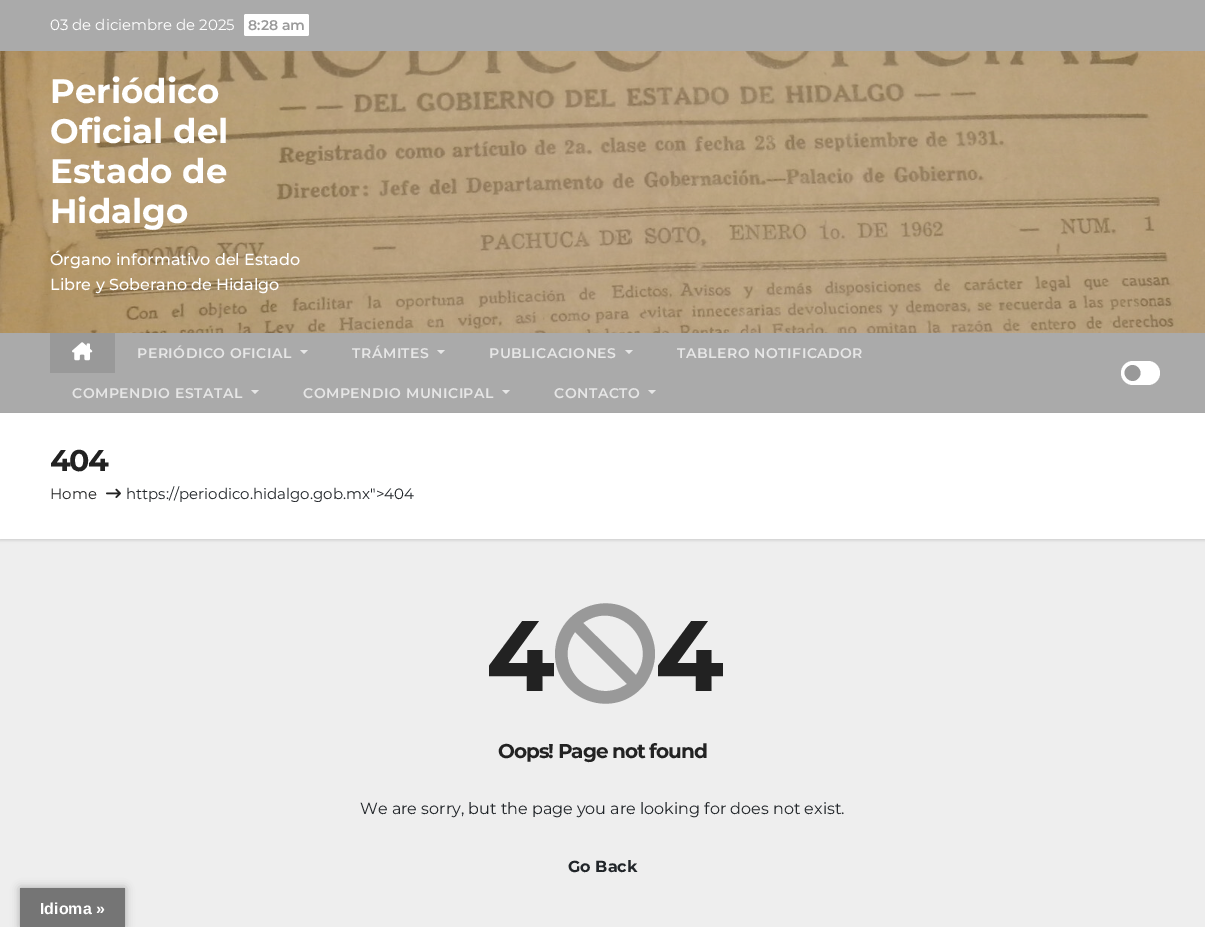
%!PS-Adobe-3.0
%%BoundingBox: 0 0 1205 927
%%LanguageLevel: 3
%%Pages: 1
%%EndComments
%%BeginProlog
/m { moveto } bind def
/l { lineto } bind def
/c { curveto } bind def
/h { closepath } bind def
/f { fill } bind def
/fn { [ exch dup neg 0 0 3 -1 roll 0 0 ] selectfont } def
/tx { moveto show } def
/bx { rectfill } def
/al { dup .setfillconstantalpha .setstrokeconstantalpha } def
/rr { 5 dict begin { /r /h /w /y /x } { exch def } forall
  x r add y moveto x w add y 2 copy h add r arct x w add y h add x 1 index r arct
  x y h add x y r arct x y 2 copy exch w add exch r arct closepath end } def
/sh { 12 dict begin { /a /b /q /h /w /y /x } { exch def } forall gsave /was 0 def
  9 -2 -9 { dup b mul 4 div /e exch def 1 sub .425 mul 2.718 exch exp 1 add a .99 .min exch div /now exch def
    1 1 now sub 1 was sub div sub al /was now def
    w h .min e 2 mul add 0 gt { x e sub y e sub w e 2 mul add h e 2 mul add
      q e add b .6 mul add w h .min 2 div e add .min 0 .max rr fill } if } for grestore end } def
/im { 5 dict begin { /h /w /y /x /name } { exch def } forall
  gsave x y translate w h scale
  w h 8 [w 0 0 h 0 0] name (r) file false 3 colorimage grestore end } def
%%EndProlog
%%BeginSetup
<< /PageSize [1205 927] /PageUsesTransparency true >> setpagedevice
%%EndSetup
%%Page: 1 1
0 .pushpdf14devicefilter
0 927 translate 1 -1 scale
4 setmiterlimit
0.933 setgray
0 0 1205 927 bx
0.667 setgray
0 0 1205 51 bx
/Montserrat-Regular 15 fn
1 setgray
(03 de diciembre de 2025) 50 30 tx
244 14 65 22 2 rr f
/Montserrat-SemiBold 14 fn
0.6 setgray
(8:28 am) 248 30 tx
(image0.raw) 0 51 1205 282 im
/Montserrat-Bold 34 fn
1 setgray
(Periódico) 50 103 tx
(Oficial del) 50 143 tx
(Estado de) 50 183 tx
(Hidalgo) 50 223 tx
/Montserrat-Medium 16 fn
(Órgano informativo del Estado) 50 265 tx
(Libre y Soberano de Hidalgo) 50 290 tx
0 setgray
0 414 1205 126 0 1.5 0.15 sh
0.8 al
0.6 setgray
0 333 1205 80 bx
1 al
50 333 65 40 bx
(image1.raw) 72 342 21 19 im
/Montserrat-SemiBold 14 fn
0.902 setgray
137 358 m 0.5 0 (PERIÓDICO OFICIAL) ashow
300 350 m 308 350 l 304 354 l h f
352 358 m 0.5 0 (TRÁMITES) ashow
437 350 m 445 350 l 441 354 l h f
489 358 m 0.5 0 (PUBLICACIONES) ashow
625 350 m 633 350 l 629 354 l h f
677 358 m 0.5 0 (TABLERO NOTIFICADOR) ashow
72 398 m 0.5 0 (COMPENDIO ESTATAL) ashow
251 390 m 259 390 l 255 394 l h f
303 398 m 0.5 0 (COMPENDIO MUNICIPAL) ashow
502 390 m 510 390 l 506 394 l h f
554 398 m 0.5 0 (CONTACTO) ashow
648 390 m 656 390 l 652 394 l h f
1 setgray
1121 361 39 24 12 rr f
0.6 setgray
1127 367.5 m 1134.5 360 1145.5 371.5 1138 378.5 c 1131 386 1119.5 374.5 1127 367.5 c h f
1 setgray
0 413 1205 126 bx
/Montserrat-Bold 30 fn
0.133 setgray
50 471 m -1.5 0 (404) ashow
/Montserrat-Regular 15 fn
(Home) 50 499 tx
(image2.raw) 106 488 15 10 im
0.129 0.145 0.161 setrgbcolor
(https://periodico.hidalgo.gob.mx">404) 126 499 tx
/Montserrat-Bold 100 fn
0.133 setgray
486 691 m -5 0 (4) ashow
0.6 setgray
627 684 m 575 632 l 550 666 593 708 627 684 c h 636 675 m 660 641 617 598 583 623 c h 555 654 m 556 606 615 585 645 623 c 651 632 655 643 655 654 c 655 664 651 675 645 684 c 615 722 556 701 555 654 c h f
0.133 setgray
655 691 m -5 0 (4) ashow
/Montserrat-Bold 20 fn
498 758 m -1 0 (Oops! Page not found) ashow
/Montserrat-Regular 16 fn
0.129 0.145 0.161 setrgbcolor
(We are sorry, but the page you are looking for does not exist.) 360 814 tx
/Montserrat-Bold 16 fn
(Go Back) 568 872 tx
0 setgray
20 888 105 39 0 4.5 0.3 sh
0.459 setgray
20 888 105 39 bx
/LiberationSans-Bold 16 fn
1 setgray
(Idioma ») 40 914 tx
.poppdf14devicefilter showpage
%%EOF
